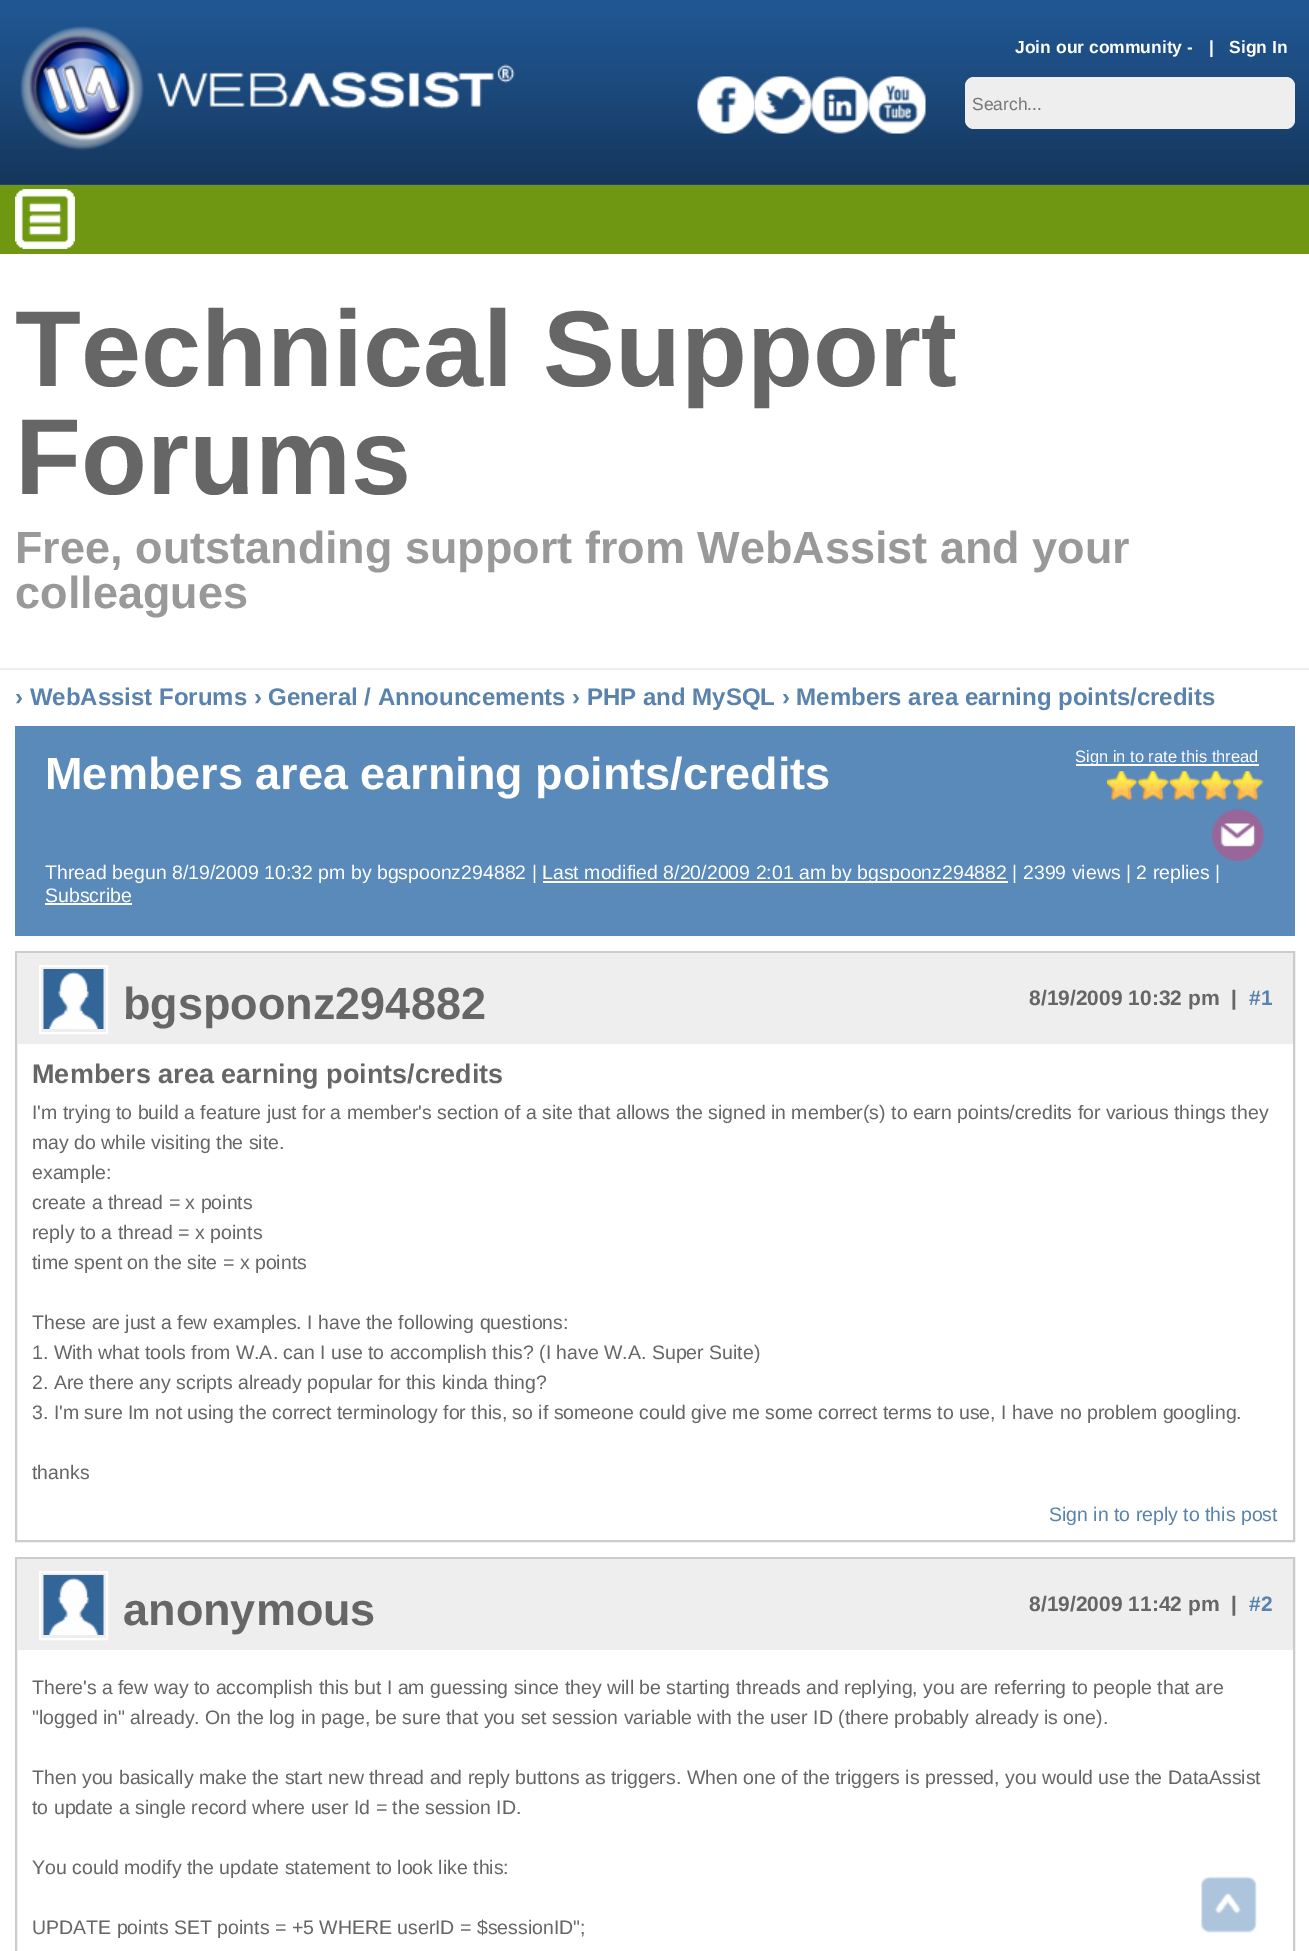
%!PS-Adobe-3.0
%%BoundingBox: 0 0 1309 1951
%%LanguageLevel: 3
%%Pages: 1
%%EndComments
%%BeginProlog
/f { fill } bind def
/w { setlinewidth } bind def
/fn { [ exch dup neg 0 0 3 -1 roll 0 0 ] selectfont } def
/tx { moveto show } def
/bx { rectfill } def
/rr { 5 dict begin { /r /h /w /y /x } { exch def } forall
  x r add y moveto x w add y 2 copy h add r arct x w add y h add x 1 index r arct
  x y h add x y r arct x y 2 copy exch w add exch r arct closepath end } def
/im { 5 dict begin { /h /w /y /x /name } { exch def } forall
  gsave x y translate w h scale
  w h 8 [w 0 0 h 0 0] name (r) file false 3 colorimage grestore end } def
%%EndProlog
%%BeginSetup
<< /PageSize [1309 1951] >> setpagedevice
%%EndSetup
%%Page: 1 1
0 1951 translate 1 -1 scale
4 setmiterlimit
0.125 0.337 0.573 setrgbcolor
0 0 1309 1951 bx
(image0.raw) 0 16 1309 169 im
(image1.raw) 20 26 495 125 im
/LiberationSans-Bold 17.5 fn
1 setgray
(Join our community -) 1015 53 tx
(|) 1209 53 tx
(Sign In) 1229 53 tx
(image2.raw) 697 76 58 58 im
(image3.raw) 754 76 58 58 im
(image4.raw) 811 76 58 58 im
(image5.raw) 868 76 58 58 im
0.933 setgray
965 77 330 52 9 rr f
/LiberationSans-Regular 17.5 fn
0.459 setgray
(Search...) 972 110 tx
0.435 0.592 0.071 setrgbcolor
0 185 1309 69 bx
(image6.raw) 15 189 60 60 im
1 setgray
0 254 1309 414 bx
0.933 setgray
0 668 1309 2 bx
/LiberationSans-Bold 108 fn
0.4 setgray
(Technical Support) 15 386 tx
(Forums) 15 494 tx
/LiberationSans-Bold 45 fn
0.6 setgray
(Free, outstanding support from WebAssist and your) 15 563 tx
(colleagues) 15 608 tx
1 setgray
0 670 1309 1281 bx
/LiberationSans-Bold 24 fn
0.349 0.514 0.675 setrgbcolor
(› WebAssist Forums › General / Announcements › PHP and MySQL › Members area earning points/credits) 15 705 tx
0.353 0.541 0.729 setrgbcolor
15 726 1280 210 bx
/LiberationSans-Bold 45 fn
1 setgray
(Members area earning points/credits) 45 789 tx
1076 764 183 2 bx
/LiberationSans-Regular 16.5 fn
(Sign in to rate this thread) 1075 762 tx
(image7.raw) 1107 771 157 29 im
(image8.raw) 1107 771 157 29 im
(image9.raw) 1212 808 53 53 im
/LiberationSans-Regular 19.5 fn
(Thread begun 8/19/2009 10:32 pm by bgspoonz294882 |) 45 879 tx
543 881 465 2 bx
(Last modified 8/20/2009 2:01 am by bgspoonz294882 | 2399 views | 2 replies |) 542 879 tx
(Subscribe) 45 902 tx
45 903 87 2 bx
0.8 setgray
2 w
16 952 1278 589 rectstroke
0.933 setgray
17 953 1276 91 bx
1 setgray
40 966 67 67 rectstroke
(image10.raw) 43 969 61 60 im
/LiberationSans-Bold 45 fn
0.4 setgray
(bgspoonz294882) 123 1019 tx
/LiberationSans-Bold 21 fn
(8/19/2009 10:32 pm  |) 1029 1005 tx
0.349 0.514 0.675 setrgbcolor
(#1) 1249 1005 tx
/LiberationSans-Bold 27 fn
0.4 setgray
(Members area earning points/credits) 32 1083 tx
/LiberationSans-Regular 19.5 fn
(I'm trying to build a feature just for a member's section of a site that allows the signed in member\(s\) to earn points/credits for various things they) 32 1119 tx
(may do while visiting the site.) 32 1149 tx
(example:) 32 1179 tx
(create a thread = x points) 32 1209 tx
(reply to a thread = x points) 32 1239 tx
(time spent on the site = x points) 32 1269 tx
(These are just a few examples. I have the following questions:) 32 1329 tx
(1. With what tools from W.A. can I use to accomplish this? \(I have W.A. Super Suite\)) 32 1359 tx
(2. Are there any scripts already popular for this kinda thing?) 32 1389 tx
(3. I'm sure Im not using the correct terminology for this, so if someone could give me some correct terms to use, I have no problem googling.) 32 1419 tx
(thanks) 32 1479 tx
0.349 0.514 0.675 setrgbcolor
(Sign in to reply to this post) 1049 1521 tx
0.8 setgray
16 1558 1278 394 rectstroke
0.933 setgray
17 1559 1276 91 bx
1 setgray
40 1572 67 67 rectstroke
(image10.raw) 43 1575 61 60 im
/LiberationSans-Bold 45 fn
0.4 setgray
(anonymous) 123 1625 tx
/LiberationSans-Bold 21 fn
(8/19/2009 11:42 pm  |) 1029 1611 tx
0.349 0.514 0.675 setrgbcolor
(#2) 1249 1611 tx
/LiberationSans-Regular 19.5 fn
0.4 setgray
(There's a few way to accomplish this but I am guessing since they will be starting threads and replying, you are referring to people that are) 32 1694 tx
("logged in" already. On the log in page, be sure that you set session variable with the user ID \(there probably already is one\).) 32 1724 tx
(Then you basically make the start new thread and reply buttons as triggers. When one of the triggers is pressed, you would use the DataAssist) 32 1784 tx
(to update a single record where user Id = the session ID.) 32 1814 tx
(You could modify the update statement to look like this:) 32 1874 tx
(UPDATE points SET points = +5 WHERE userID = $sessionID";) 32 1934 tx
(image11.raw) 1201 1876 56 57 im
showpage
%%EOF
